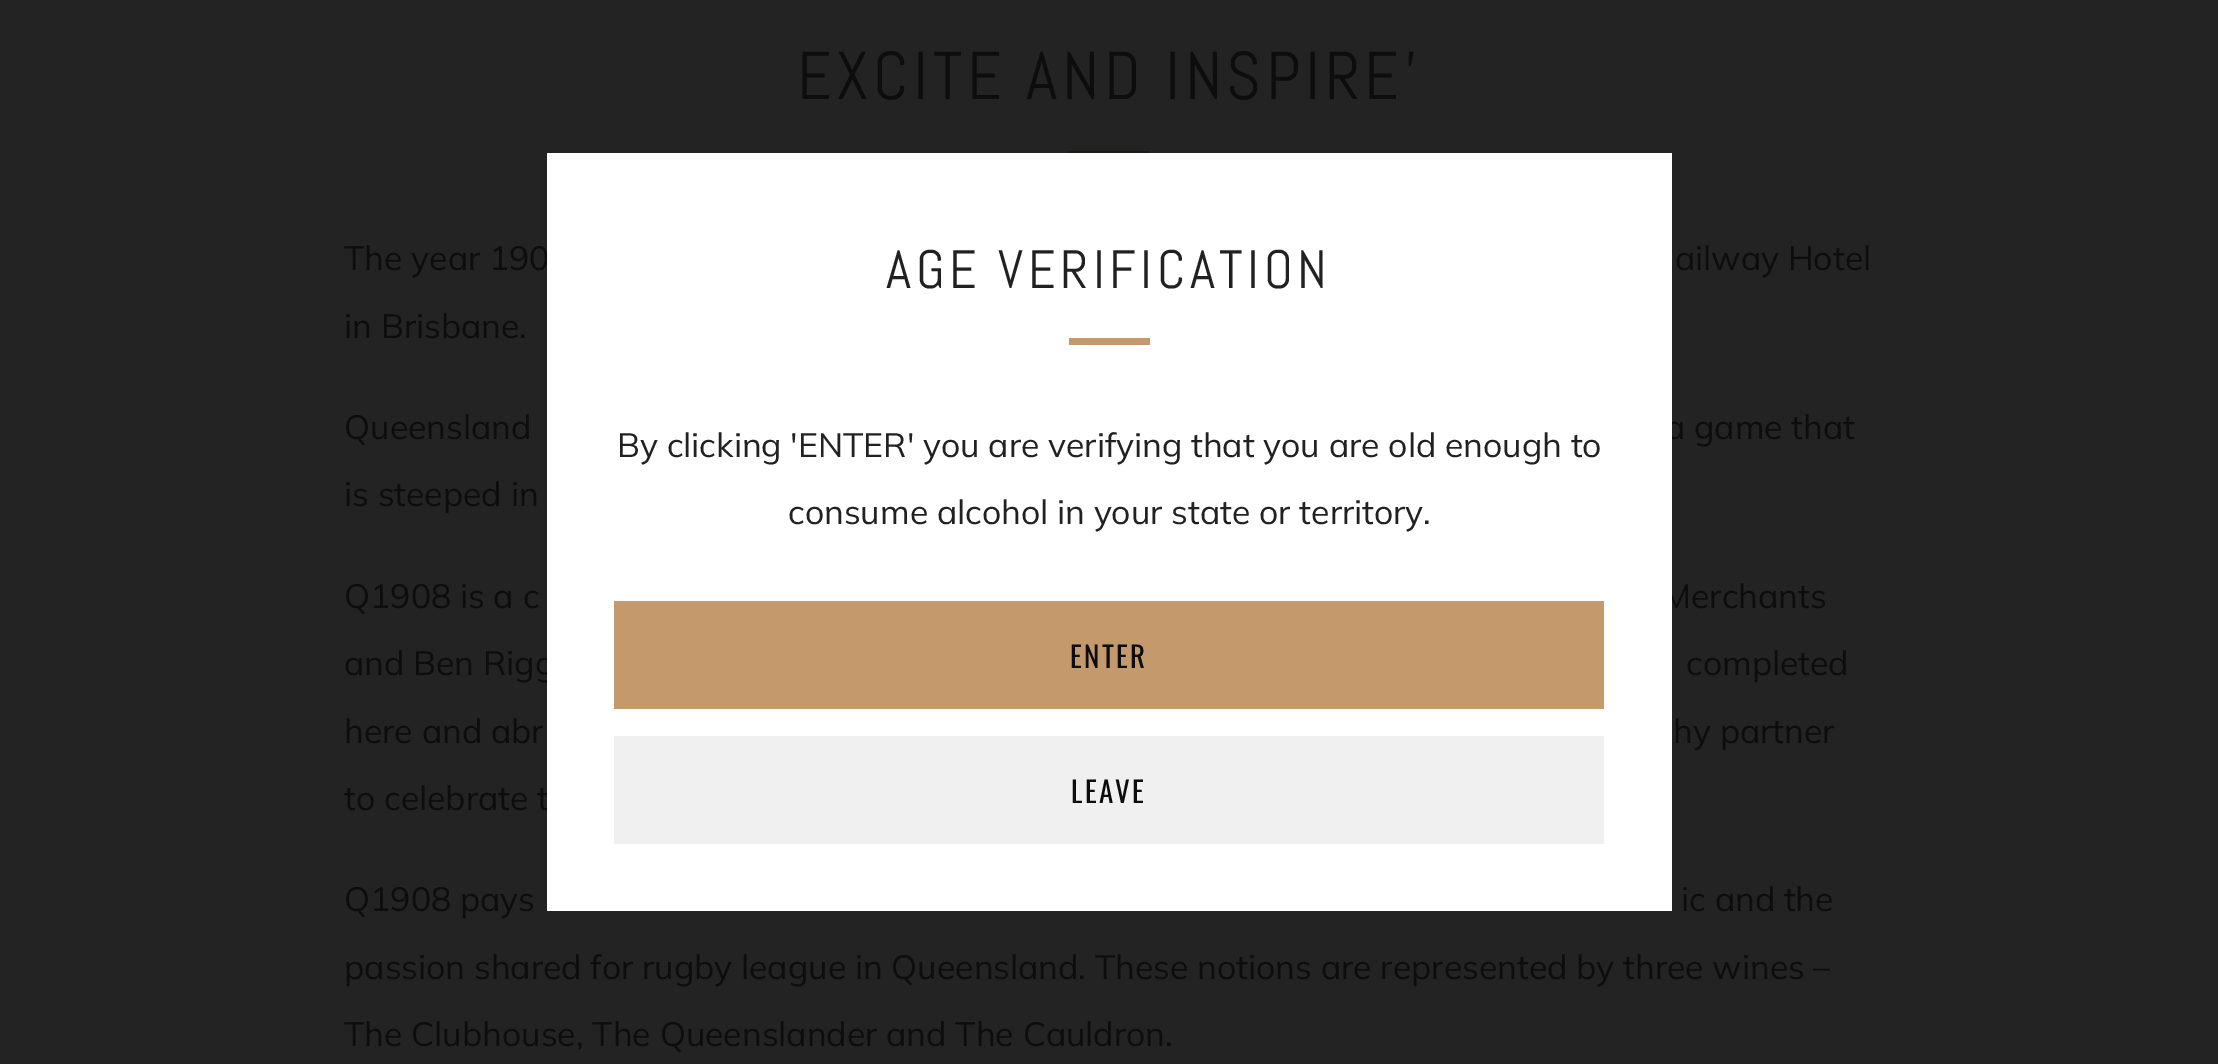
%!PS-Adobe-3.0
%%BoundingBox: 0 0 2218 1064
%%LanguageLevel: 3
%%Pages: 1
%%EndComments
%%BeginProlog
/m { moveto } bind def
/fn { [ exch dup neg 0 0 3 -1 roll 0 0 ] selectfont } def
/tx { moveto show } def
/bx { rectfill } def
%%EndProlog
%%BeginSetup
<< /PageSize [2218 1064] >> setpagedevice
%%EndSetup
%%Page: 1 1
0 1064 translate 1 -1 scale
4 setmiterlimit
0.137 setgray
0 0 2218 1064 bx
/Abel-Regular 67.5 fn
0.051 setgray
797 99 m 4.5 0 (EXCITE AND INSPIRE’) ashow
0.114 0.098 0.082 setrgbcolor
1069 151 81 2 bx
/Muli-Regular 33.75 fn
0.051 setgray
(The year 190) 344 270 tx
(ailway Hotel) 1675 270 tx
(in Brisbane.) 344 338 tx
(Queensland) 344 439 tx
(a game that) 1665 439 tx
(is steeped in) 344 506 tx
(Q1908 is a c) 344 608 tx
(Merchants) 1662 608 tx
(and Ben Rigg) 344 675 tx
(completed) 1686 675 tx
(here and abr) 344 743 tx
(hy partner) 1673 743 tx
(to celebrate t) 344 810 tx
(Q1908 pays) 344 911 tx
(ic and the) 1681 911 tx
(passion shared for rugby league in Queensland. These notions are represented by three wines –) 344 979 tx
(The Clubhouse, The Queenslander and The Cauldron.) 344 1046 tx
1 setgray
547 153 1125 758 bx
/Abel-Regular 54 fn
0.129 setgray
886 288 m 4.5 0 (AGE VERIFICATION) ashow
0.769 0.604 0.424 setrgbcolor
1069 338 81 7 bx
/Muli-Regular 33.75 fn
0.129 setgray
(By clicking 'ENTER' you are verifying that you are old enough to) 617 457 tx
(consume alcohol in your state or territory.) 788 524 tx
0.769 0.604 0.424 setrgbcolor
614 601 990 108 bx
/Oswald-Regular 29 fn
0.051 setgray
1070 668 m 2.25 0 (ENTER) ashow
0.941 setgray
614 736 990 108 bx
0.051 setgray
1071 803 m 2.25 0 (LEAVE) ashow
showpage
%%EOF
